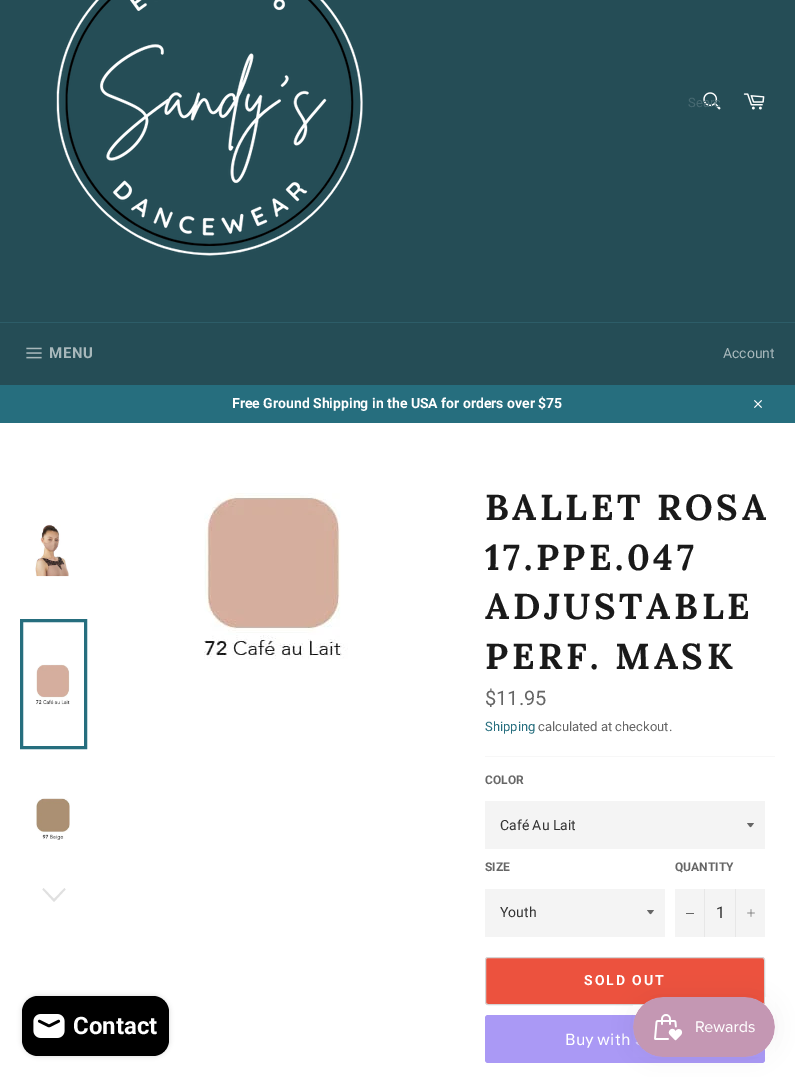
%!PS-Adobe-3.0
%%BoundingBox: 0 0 795 1077
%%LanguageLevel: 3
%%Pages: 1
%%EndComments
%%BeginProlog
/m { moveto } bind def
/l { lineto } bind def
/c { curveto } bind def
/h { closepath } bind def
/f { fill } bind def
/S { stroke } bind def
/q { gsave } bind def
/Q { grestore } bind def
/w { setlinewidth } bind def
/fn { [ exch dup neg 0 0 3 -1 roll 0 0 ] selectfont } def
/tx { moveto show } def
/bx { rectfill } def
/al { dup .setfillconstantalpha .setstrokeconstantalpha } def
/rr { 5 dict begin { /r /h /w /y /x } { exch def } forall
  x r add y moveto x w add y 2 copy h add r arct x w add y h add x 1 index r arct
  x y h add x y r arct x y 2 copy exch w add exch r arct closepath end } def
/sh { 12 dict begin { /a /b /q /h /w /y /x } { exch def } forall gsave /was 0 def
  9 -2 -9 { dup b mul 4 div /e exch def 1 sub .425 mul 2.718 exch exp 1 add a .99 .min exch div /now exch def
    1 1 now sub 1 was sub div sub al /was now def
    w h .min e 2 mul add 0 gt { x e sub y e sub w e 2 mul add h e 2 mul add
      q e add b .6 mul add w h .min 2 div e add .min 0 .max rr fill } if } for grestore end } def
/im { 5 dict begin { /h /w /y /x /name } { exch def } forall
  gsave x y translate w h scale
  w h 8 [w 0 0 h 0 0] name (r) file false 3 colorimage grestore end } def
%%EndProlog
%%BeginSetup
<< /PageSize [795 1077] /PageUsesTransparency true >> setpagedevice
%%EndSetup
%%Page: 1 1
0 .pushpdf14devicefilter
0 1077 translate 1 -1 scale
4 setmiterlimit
0.145 0.302 0.337 setrgbcolor
0 0 795 1077 bx
(image0.raw) 56 0 308 256 im
(image1.raw) 703 92 18 18 im
q
688 95 32 15 rectclip
/Roboto-Regular 13 fn
0.278 0.412 0.443 setrgbcolor
(Searc) 688 107 tx
Q
(image2.raw) 743 93 22 17 im
0.176 0.365 0.408 setrgbcolor
0 322 795 1 bx
(image3.raw) 26 347 16 12 im
/Roboto-Bold 15 fn
0.659 0.722 0.733 setrgbcolor
49 358 m 0.5 0 (MENU) ashow
/Roboto-Regular 14 fn
(Account) 723 358 tx
0.149 0.431 0.494 setrgbcolor
0 385 795 38 bx
/Roboto-Bold 14 fn
1 setgray
(Free Ground Shipping in the USA for orders over $75) 232 408 tx
(image4.raw) 754 400 8 8 im
0 423 795 654 bx
(image5.raw) 35 524 34 53 im
(image6.raw) 36 664 34 41 im
0.149 0.431 0.494 setrgbcolor
3 w
21.5 620.5 64 127 rectstroke
(image7.raw) 36 798 34 42 im
0.878 setgray
64.5 888 m 65.5 889.5 l 54 902 l 42.5 889.5 l 43.5 888 l 54 899 l h f
(image8.raw) 204 493 144 166 im
/Lora-Bold 36 fn
0.102 setgray
485 520 m 3.6 0 (BALLET ROSA) ashow
485 570 m 3.6 0 (17.PPE.047) ashow
485 619 m 3.6 0 (ADJUSTABLE) ashow
485 669 m 3.6 0 (PERF. MASK) ashow
/Roboto-Regular 20 fn
0.4 setgray
($11.95) 485 705 tx
/Roboto-Regular 13 fn
0.149 0.431 0.494 setrgbcolor
(Shipping) 485 731 tx
0.4 setgray
(calculated at checkout.) 538 731 tx
0.969 setgray
485 756 290 1 bx
/Roboto-Bold 12 fn
0.4 setgray
(COLOR) 485 784 tx
0.957 setgray
485 801 280 48 bx
0.4 setgray
747 823 m 751.5 828.5 749.5 828.5 754 823 c h f
/Roboto-Regular 14 fn
0.2 setgray
(Café Au Lait) 500 830 tx
/Roboto-Bold 12 fn
0.4 setgray
(SIZE) 485 871 tx
0.957 setgray
485 889 180 48 bx
0.4 setgray
647 910 m 651.5 915.5 649.5 915.5 654 910 c h f
/Roboto-Regular 14 fn
0.2 setgray
(Youth) 500 917 tx
/Roboto-Bold 12 fn
0.4 setgray
(QUANTITY) 675 871 tx
0.957 setgray
675 889 90 48 bx
0.906 setgray
704 889 1 48 bx
0.4 setgray
686 913 8 1 bx
/Roboto-Regular 16 fn
0.2 setgray
(1) 716 918 tx
0.906 setgray
735 889 1 48 bx
(image9.raw) 747 909 8 8 im
0.925 0.322 0.243 setrgbcolor
485.5 957.5 279 47 2.5 rr q f Q
0.835 setgray
1 w
S
/Roboto-Bold 14 fn
1 setgray
584 985 m 2 0 (SOLD OUT) ashow
0.667 0.6 0.961 setrgbcolor
485 1015 280 48 3 rr f
/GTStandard-Regular 16 fn
1 setgray
(Buy with) 565 1045 tx
(image10.raw) 635 1037 5 9 im
0 setgray
22 996 147 60 16 2.5 0.15 sh
22 996 147 60 16 rr f
(image11.raw) 33 1014 32 24 im
/Roboto-Bold 24 fn
1 setgray
(Contact) 73 1034 tx
0 setgray
633 997 142 60 30 12.5 0.05 sh
(image12.raw) 633 997 142 60 im
.poppdf14devicefilter showpage
%%EOF
